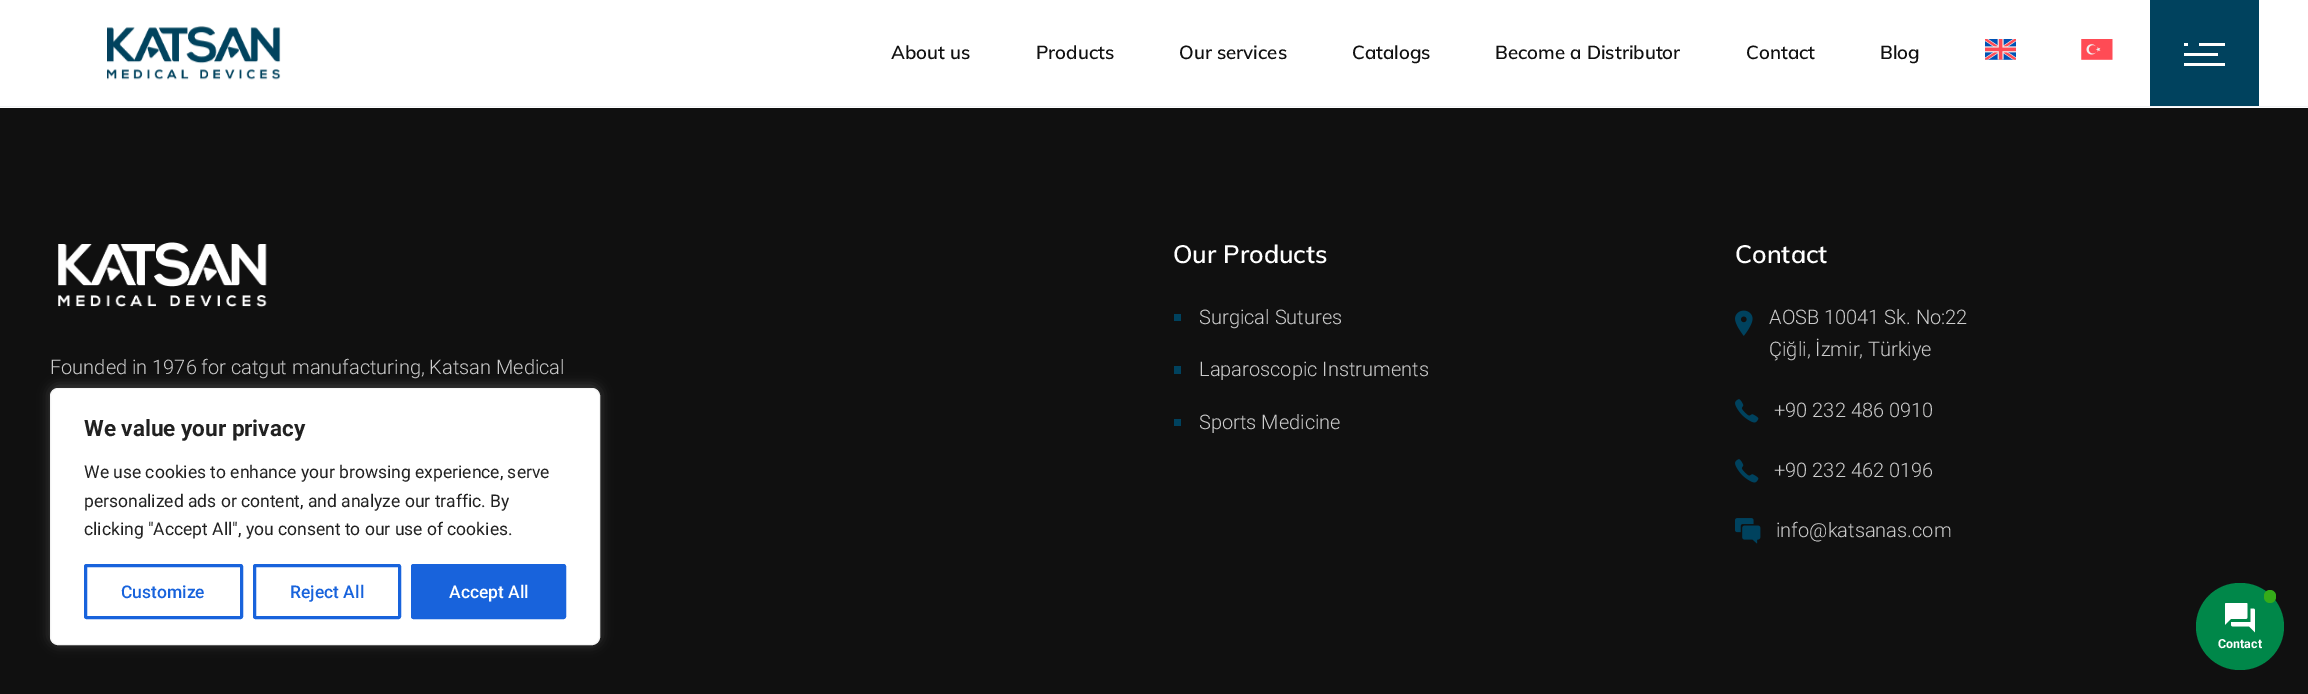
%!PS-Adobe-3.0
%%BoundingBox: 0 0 2308 694
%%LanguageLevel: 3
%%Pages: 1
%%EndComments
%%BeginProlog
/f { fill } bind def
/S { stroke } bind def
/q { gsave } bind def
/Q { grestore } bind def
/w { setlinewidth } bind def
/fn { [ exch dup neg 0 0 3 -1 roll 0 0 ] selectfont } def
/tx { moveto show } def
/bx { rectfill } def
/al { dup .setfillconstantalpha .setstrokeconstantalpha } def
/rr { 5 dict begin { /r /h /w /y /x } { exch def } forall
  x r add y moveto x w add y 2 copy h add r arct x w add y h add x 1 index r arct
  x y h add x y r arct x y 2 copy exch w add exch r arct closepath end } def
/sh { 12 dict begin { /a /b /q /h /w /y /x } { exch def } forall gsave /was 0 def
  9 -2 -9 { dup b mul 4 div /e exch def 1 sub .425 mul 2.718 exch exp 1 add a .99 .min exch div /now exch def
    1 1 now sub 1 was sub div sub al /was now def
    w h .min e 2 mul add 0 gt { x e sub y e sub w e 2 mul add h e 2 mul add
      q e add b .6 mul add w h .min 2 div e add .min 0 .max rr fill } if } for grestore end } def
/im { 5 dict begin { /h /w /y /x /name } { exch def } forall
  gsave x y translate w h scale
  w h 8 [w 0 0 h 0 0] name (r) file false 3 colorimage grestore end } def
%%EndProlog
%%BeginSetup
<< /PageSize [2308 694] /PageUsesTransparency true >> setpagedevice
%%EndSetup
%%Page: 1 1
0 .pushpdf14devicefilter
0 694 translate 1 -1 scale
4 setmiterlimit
1 setgray
0 0 2308 694 bx
0.945 0.953 0.961 setrgbcolor
0 106 2308 1 bx
(image0.raw) 107 26 174 54 im
/Muli-SemiBold 18.75 fn
0.063 setgray
(About us) 891 59 tx
(Products) 1036 59 tx
(Our services) 1179 59 tx
(Catalogs) 1352 59 tx
(Become a Distributor) 1495 59 tx
(Contact) 1746 59 tx
(Blog) 1880 59 tx
(image1.raw) 1985 39 31 21 im
(image2.raw) 2081 39 32 21 im
0 0.259 0.369 setrgbcolor
2150 0 109 106 bx
1 setgray
2184 43 4 3 bx
2199 43 26 3 bx
2184 53 34 3 bx
2184 63 41 3 bx
0.063 setgray
0 108 2308 586 bx
(image3.raw) 58 242 209 65 im
/Roboto-Light 20 fn
0.8 setgray
(Founded in 1976 for catgut manufacturing, Katsan Medical) 50 374 tx
/Muli-SemiBold 25 fn
1 setgray
(Our Products) 1173 263 tx
0 0.259 0.369 setrgbcolor
1174 314 7 7 bx
/Roboto-Light 20 fn
0.8 setgray
(Surgical Sutures) 1199 324 tx
0 0.259 0.369 setrgbcolor
1174 366 7 8 bx
0.8 setgray
(Laparoscopic Instruments) 1199 376 tx
0 0.259 0.369 setrgbcolor
1174 419 7 7 bx
0.8 setgray
(Sports Medicine) 1199 429 tx
/Muli-SemiBold 25 fn
1 setgray
(Contact) 1735 263 tx
(image4.raw) 1735 310 18 26 im
/Roboto-Light 20 fn
0.8 setgray
(AOSB 10041 Sk. No:22) 1769 324 tx
(Çiğli, İzmir, Türkiye) 1769 356 tx
(image5.raw) 1735 399 24 24 im
(+90 232 486 0910) 1774 417 tx
(image5.raw) 1735 459 24 24 im
(+90 232 462 0196) 1774 477 tx
(image6.raw) 1735 518 26 26 im
(info@katsanas.com) 1776 537 tx
0.675 0.671 0.671 setrgbcolor
50 386 550 258 8 6 0.3 sh
1 setgray
50.5 388.5 549 256 7.5 rr q f Q
0.957 setgray
S
/Roboto-Bold 22.5 fn
0.129 setgray
(We value your privacy) 84 436 tx
/Roboto-Regular 17.5 fn
(We use cookies to enhance your browsing experience, serve) 84 478 tx
(personalized ads or content, and analyze our traffic. By) 84 507 tx
(clicking "Accept All", you consent to our use of cookies.) 84 535 tx
0.094 0.388 0.863 setrgbcolor
3 w
85.5 565.5 156 52 1 rr S
/Roboto-Medium 17.5 fn
(Customize) 121 598 tx
254.5 565.5 145 52 1 rr S
(Reject All) 290 598 tx
412.5 565.5 152 52 1 rr q f Q
S
1 setgray
(Accept All) 449 598 tx
0 0.529 0.286 setrgbcolor
2196 583 88 87 43.5 rr f
0.208 0.675 0.098 setrgbcolor
2264 590 12 13 6 rr f
(image7.raw) 2225 603 30 30 im
/Roboto-Bold 12.5 fn
1 setgray
(Contact) 2218 648 tx
.poppdf14devicefilter showpage
%%EOF
